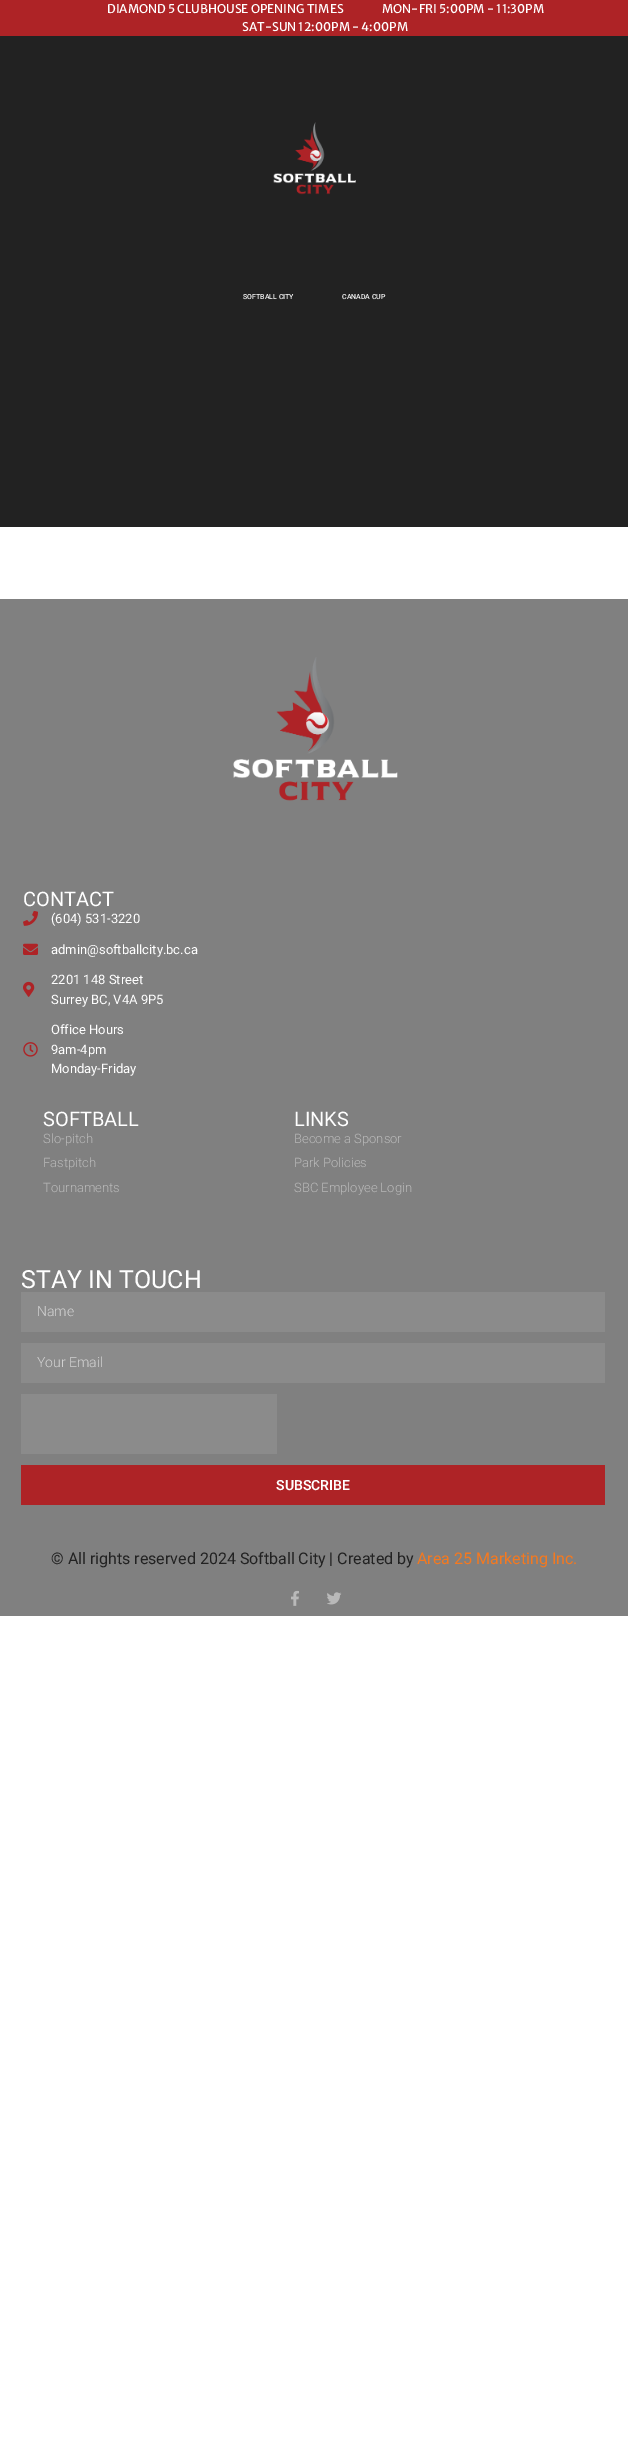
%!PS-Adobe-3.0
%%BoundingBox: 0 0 628 2456
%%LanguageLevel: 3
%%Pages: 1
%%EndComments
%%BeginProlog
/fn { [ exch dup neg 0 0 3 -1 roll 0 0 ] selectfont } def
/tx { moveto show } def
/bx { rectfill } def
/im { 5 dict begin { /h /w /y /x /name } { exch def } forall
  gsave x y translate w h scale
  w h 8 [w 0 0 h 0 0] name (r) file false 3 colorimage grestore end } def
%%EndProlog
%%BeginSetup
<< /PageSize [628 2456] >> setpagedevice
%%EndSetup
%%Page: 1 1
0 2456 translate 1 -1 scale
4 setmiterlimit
1 setgray
0 0 628 2456 bx
0.682 0.137 0.149 setrgbcolor
0 0 628 36 bx
/MerriweatherSans-Regular 12 fn
1 setgray
(DIAMOND 5 CLUBHOUSE OPENING TIMES) 107 13 tx
(MON-FRI 5:00PM - 11:30PM) 382 13 tx
(SAT-SUN 12:00PM - 4:00PM) 242 31 tx
0.133 setgray
0 36 628 491 bx
(image0.raw) 273 122 83 73 im
/Roboto-Medium 7 fn
1 setgray
(SOFTBALL CITY) 243 299 tx
(CANADA CUP) 342 299 tx
0.502 setgray
0 599 628 1017 bx
(image1.raw) 233 657 165 144 im
/Roboto-Regular 20 fn
1 setgray
(CONTACT) 23 906 tx
(image2.raw) 23 910 15 16 im
/Roboto-Regular 13 fn
(\(604\) 531-3220) 51 923 tx
(image3.raw) 23 943 15 12 im
(admin@softballcity.bc.ca) 51 954 tx
(image4.raw) 23 981 12 16 im
(2201 148 Street) 51 984 tx
(Surrey BC, V4A 9P5) 51 1004 tx
(image5.raw) 23 1042 15 15 im
(Office Hours) 51 1034 tx
(9am-4pm) 51 1054 tx
(Monday-Friday) 51 1073 tx
/Roboto-Regular 20 fn
(SOFTBALL) 43 1126 tx
/Roboto-Light 13 fn
0.725 setgray
(Slo-pitch) 43 1143 tx
(Fastpitch) 43 1167 tx
(Tournaments) 43 1192 tx
/Roboto-Regular 20 fn
1 setgray
(LINKS) 294 1126 tx
/Roboto-Light 13 fn
0.725 setgray
(Become a Sponsor) 294 1143 tx
(Park Policies) 294 1167 tx
(SBC Employee Login) 294 1192 tx
/Roboto-Regular 25 fn
1 setgray
(STAY IN TOUCH) 21 1288 tx
0.545 setgray
21 1292 584 40 bx
/Roboto-Light 14 fn
0.82 setgray
(Name) 37 1316 tx
0.545 setgray
21 1343 584 40 bx
0.82 setgray
(Your Email) 37 1367 tx
0.545 setgray
21 1394 256 60 bx
0.682 0.137 0.149 setrgbcolor
21 1465 584 40 bx
/Roboto-SemiBold 14 fn
1 setgray
(SUBSCRIBE) 276 1490 tx
/Roboto-Regular 16 fn
0.133 setgray
(© All rights reserved 2024 Softball City | Created by) 51 1564 tx
0.957 0.475 0.125 setrgbcolor
(Area 25 Marketing Inc.) 417 1564 tx
(image6.raw) 291 1590 8 16 im
(image7.raw) 327 1592 15 13 im
showpage
%%EOF
